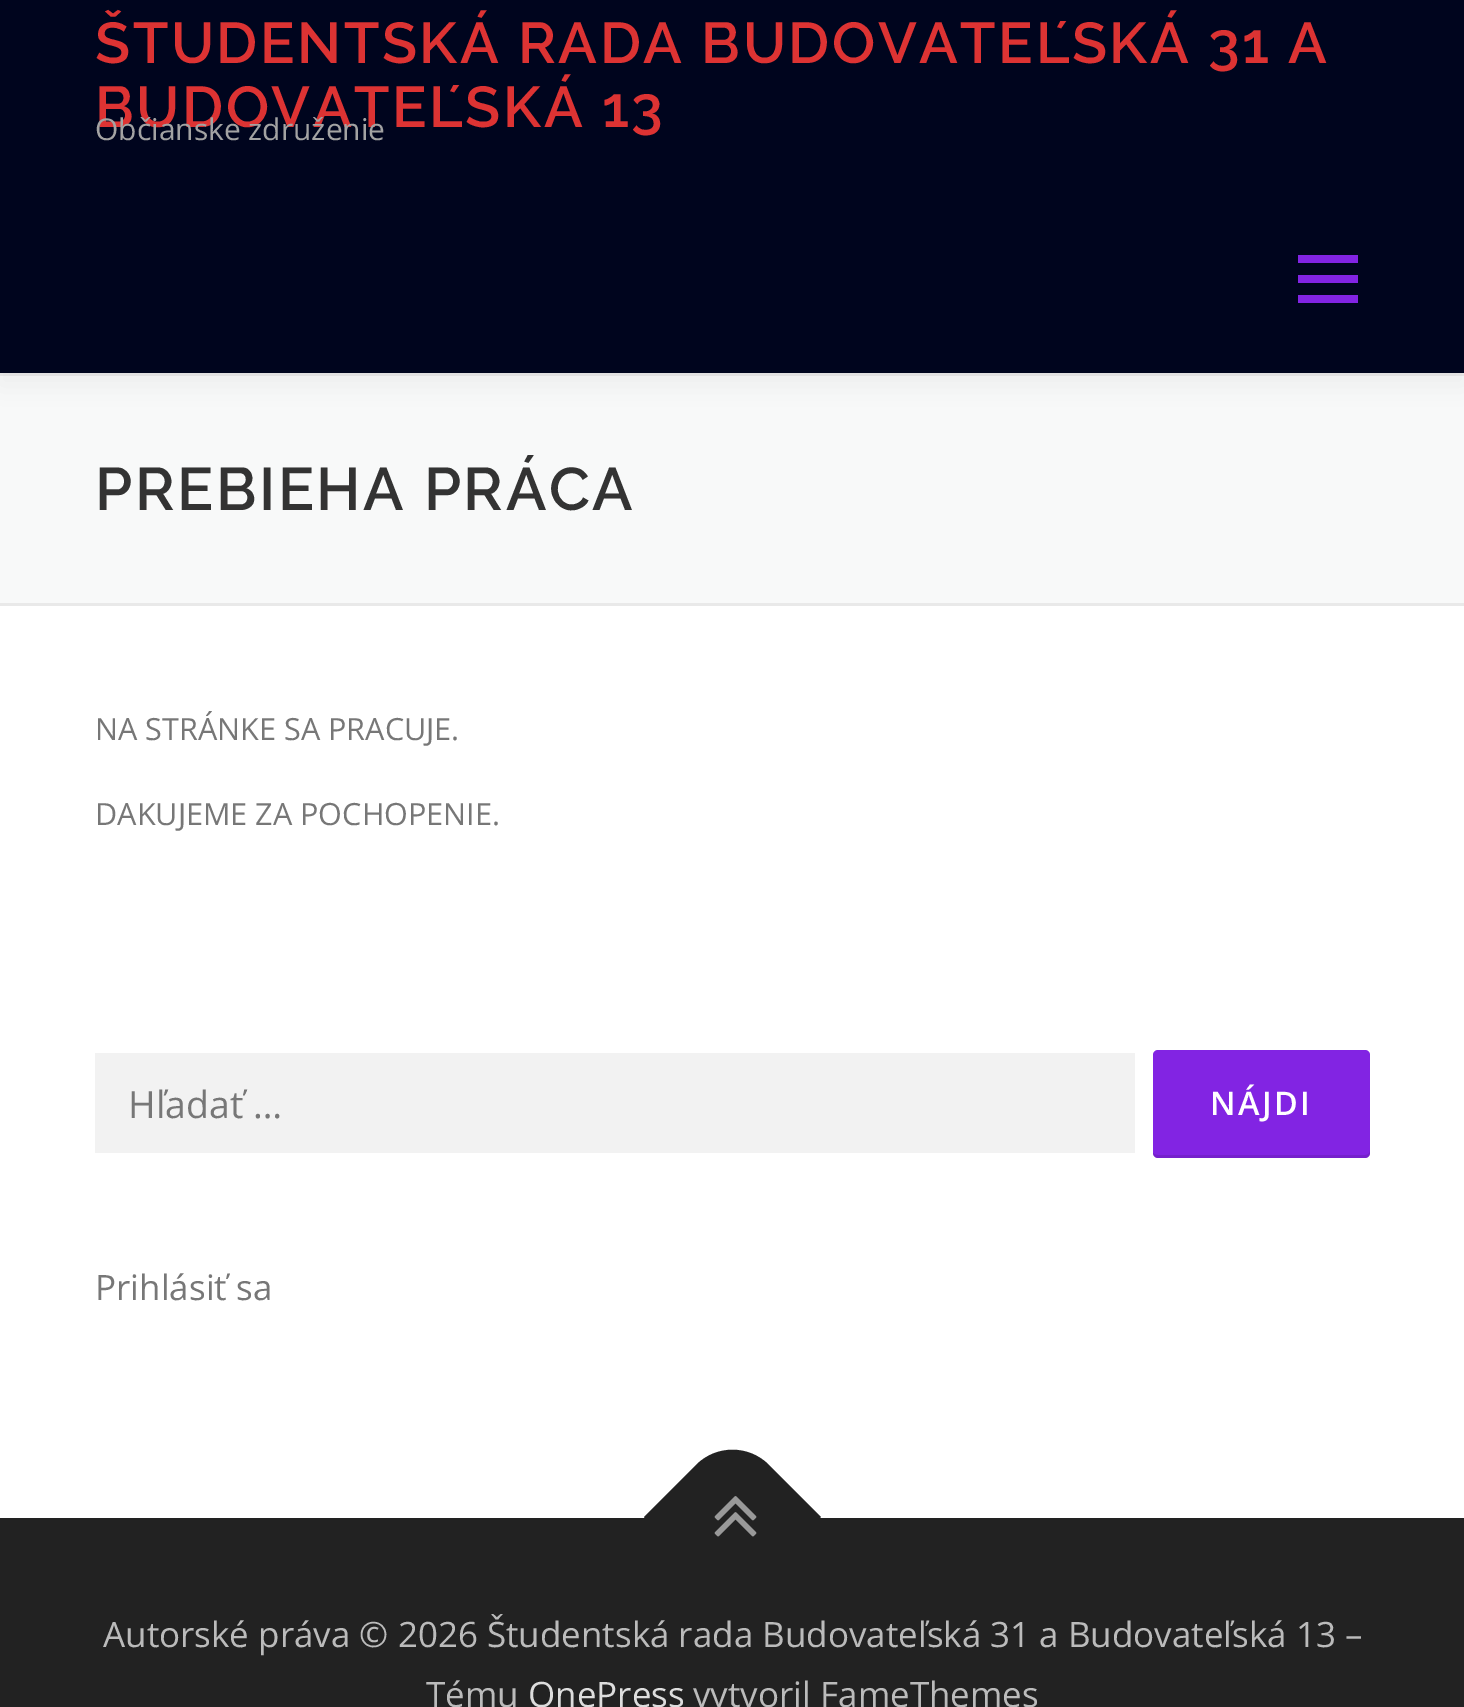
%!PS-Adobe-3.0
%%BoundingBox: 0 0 1464 1707
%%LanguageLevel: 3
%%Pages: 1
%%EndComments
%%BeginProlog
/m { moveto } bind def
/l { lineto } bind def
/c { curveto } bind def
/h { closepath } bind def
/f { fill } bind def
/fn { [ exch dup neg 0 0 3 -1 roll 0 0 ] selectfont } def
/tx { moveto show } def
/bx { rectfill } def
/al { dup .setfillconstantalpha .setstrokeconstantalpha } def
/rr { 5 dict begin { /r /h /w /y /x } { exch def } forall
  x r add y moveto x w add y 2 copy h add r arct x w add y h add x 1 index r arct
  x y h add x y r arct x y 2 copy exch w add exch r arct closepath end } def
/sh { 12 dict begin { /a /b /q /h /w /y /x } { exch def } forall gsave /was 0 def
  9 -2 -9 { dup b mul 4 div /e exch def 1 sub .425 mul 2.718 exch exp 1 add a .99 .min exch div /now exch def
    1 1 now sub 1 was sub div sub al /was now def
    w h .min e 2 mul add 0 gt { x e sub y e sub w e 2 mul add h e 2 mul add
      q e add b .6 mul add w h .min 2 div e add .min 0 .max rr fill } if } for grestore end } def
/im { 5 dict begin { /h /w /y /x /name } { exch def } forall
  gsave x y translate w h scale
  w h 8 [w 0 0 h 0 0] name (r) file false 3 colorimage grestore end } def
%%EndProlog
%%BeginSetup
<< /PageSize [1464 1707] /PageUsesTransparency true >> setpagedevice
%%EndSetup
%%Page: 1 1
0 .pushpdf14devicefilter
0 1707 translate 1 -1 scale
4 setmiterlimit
1 setgray
0 0 1464 1707 bx
0.973 0.976 0.976 setrgbcolor
0 376 1464 227 bx
0.914 setgray
0 373 1464 3 bx
0.196 setgray
0 13 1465 372 0 12.5 0.06 sh
0 0.02 0.118 setrgbcolor
0 0 1464 373 bx
/Raleway-SemiBold 57.5 fn
0.867 0.2 0.2 setrgbcolor
95 63 m 2.5 0 (ŠTUDENTSKÁ RADA BUDOVATEĽSKÁ 31 A) ashow
95 127 m 2.5 0 (BUDOVATEĽSKÁ 13) ashow
/OpenSans-Regular 30 fn
0.639 setgray
(Občianske združenie) 95 140 tx
0.51 0.141 0.89 setrgbcolor
1298 275 60 8 bx
1298 255 60 8 bx
1298 295 60 8 bx
0.914 setgray
0 603 1464 3 bx
/Raleway-SemiBold 60 fn
0.2 setgray
95 510 m 2.5 0 (PREBIEHA PRÁCA) ashow
/OpenSans-Regular 30.6 fn
0.467 setgray
(NA STRÁNKE SA PRACUJE.) 95 740 tx
(DAKUJEME ZA POCHOPENIE.) 95 825 tx
0.949 setgray
95 1053 1040 100 bx
/OpenSans-Regular 37.5 fn
0.467 setgray
(Hľadať …) 128 1118 tx
0.51 0.141 0.89 setrgbcolor
1153 1050 217 108 5 rr f
0.1 al
0 setgray
1153 1153 m 1153 1156 1155 1158 1158 1158 c 1365 1158 l 1368 1158 1370 1156 1370 1153 c 1370 1150 l 1370 1153 1368 1155 1365 1155 c 1158 1155 l 1156 1155 1154 1154 1153 1153 c h f
/OpenSans-SemiBold 32.5 fn
1 al
1 setgray
1210 1115 m 2.5 0 (NÁJDI) ashow
/OpenSans-Regular 35 fn
0.467 setgray
(Prihlásiť sa) 95 1300 tx
0.133 setgray
0 1518 1464 189 bx
644 1517 m 697 1464 l 717 1445 748 1445 768 1464 c 821 1517 l 732 1606 l h f
(image0.raw) 714 1496 43 41 im
0.733 setgray
(Autorské práva © 2026 Študentská rada Budovateľská 31 a Budovateľská 13 –) 103 1647 tx
(Tému) 426 1707 tx
0.867 setgray
(OnePress) 528 1707 tx
0.733 setgray
(vytvoril FameThemes) 693 1707 tx
.poppdf14devicefilter showpage
%%EOF
